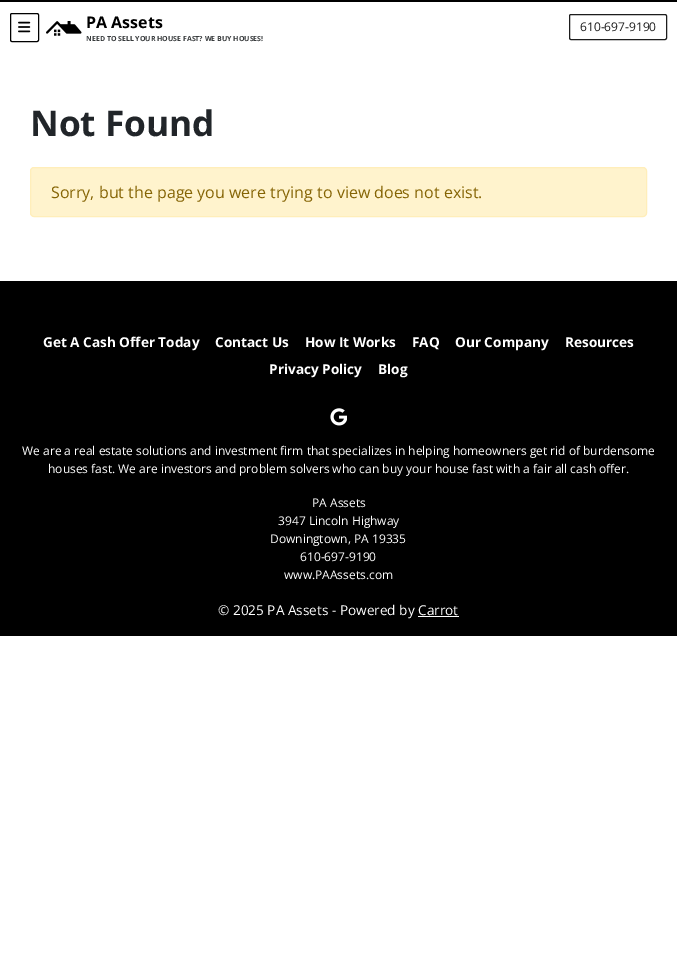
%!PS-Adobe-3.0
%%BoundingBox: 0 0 677 971
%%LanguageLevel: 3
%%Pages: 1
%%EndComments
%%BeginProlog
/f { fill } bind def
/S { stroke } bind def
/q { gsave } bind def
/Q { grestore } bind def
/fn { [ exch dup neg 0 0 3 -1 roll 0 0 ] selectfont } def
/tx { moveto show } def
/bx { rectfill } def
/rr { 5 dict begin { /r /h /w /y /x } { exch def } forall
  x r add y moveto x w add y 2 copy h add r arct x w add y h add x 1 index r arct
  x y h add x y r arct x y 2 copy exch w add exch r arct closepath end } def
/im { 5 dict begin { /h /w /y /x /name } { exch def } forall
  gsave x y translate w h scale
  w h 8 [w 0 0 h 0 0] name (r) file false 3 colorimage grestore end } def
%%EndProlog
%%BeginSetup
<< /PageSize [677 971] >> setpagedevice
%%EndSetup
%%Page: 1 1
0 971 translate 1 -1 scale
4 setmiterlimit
1 setgray
0 0 677 971 bx
0 setgray
0 0 677 2 bx
10.5 13.5 28 28 1.5 rr S
(image0.raw) 18 21 13 12 im
(image1.raw) 46 21 36 15 im
/OpenSans-Bold 16 fn
(PA Assets) 86 28 tx
/OpenSans-Bold 7 fn
0.216 0.227 0.235 setrgbcolor
(NEED TO SELL YOUR HOUSE FAST? WE BUY HOUSES!) 86 41 tx
0.114 setgray
569.5 14.5 97 25 1.5 rr S
/OpenSans-Regular 12 fn
(610-697-9190) 580 31 tx
/OpenSans-Bold 35.25 fn
0.129 0.145 0.161 setrgbcolor
(Not Found) 30 136 tx
1 0.953 0.804 setrgbcolor
30.5 167.5 616 49 3.5 rr q f Q
1 0.933 0.729 setrgbcolor
S
/OpenSans-Regular 16 fn
0.522 0.392 0.016 setrgbcolor
(Sorry, but the page you were trying to view does not exist.) 51 198 tx
0 setgray
0 281 677 355 bx
/OpenSans-Bold 13.6 fn
1 setgray
(Get A Cash Offer Today) 43 347 tx
(Contact Us) 215 347 tx
(How It Works) 305 347 tx
(FAQ) 412 347 tx
(Our Company) 455 347 tx
(Resources) 565 347 tx
(Privacy Policy) 269 374 tx
(Blog) 378 374 tx
(image2.raw) 330 408 17 18 im
/OpenSans-Regular 12 fn
(We are a real estate solutions and investment firm that specializes in helping homeowners get rid of burdensome) 22 455 tx
(houses fast. We are investors and problem solvers who can buy your house fast with a fair all cash offer.) 48 473 tx
(PA Assets) 312 507 tx
(3947 Lincoln Highway) 278 525 tx
(Downingtown, PA 19335) 270 543 tx
(610-697-9190) 300 561 tx
(www.PAAssets.com) 284 579 tx
/OpenSans-Regular 13.6 fn
(© 2025 PA Assets - Powered by Carrot) 218 615 tx
418 616 41 1 bx
showpage
%%EOF
